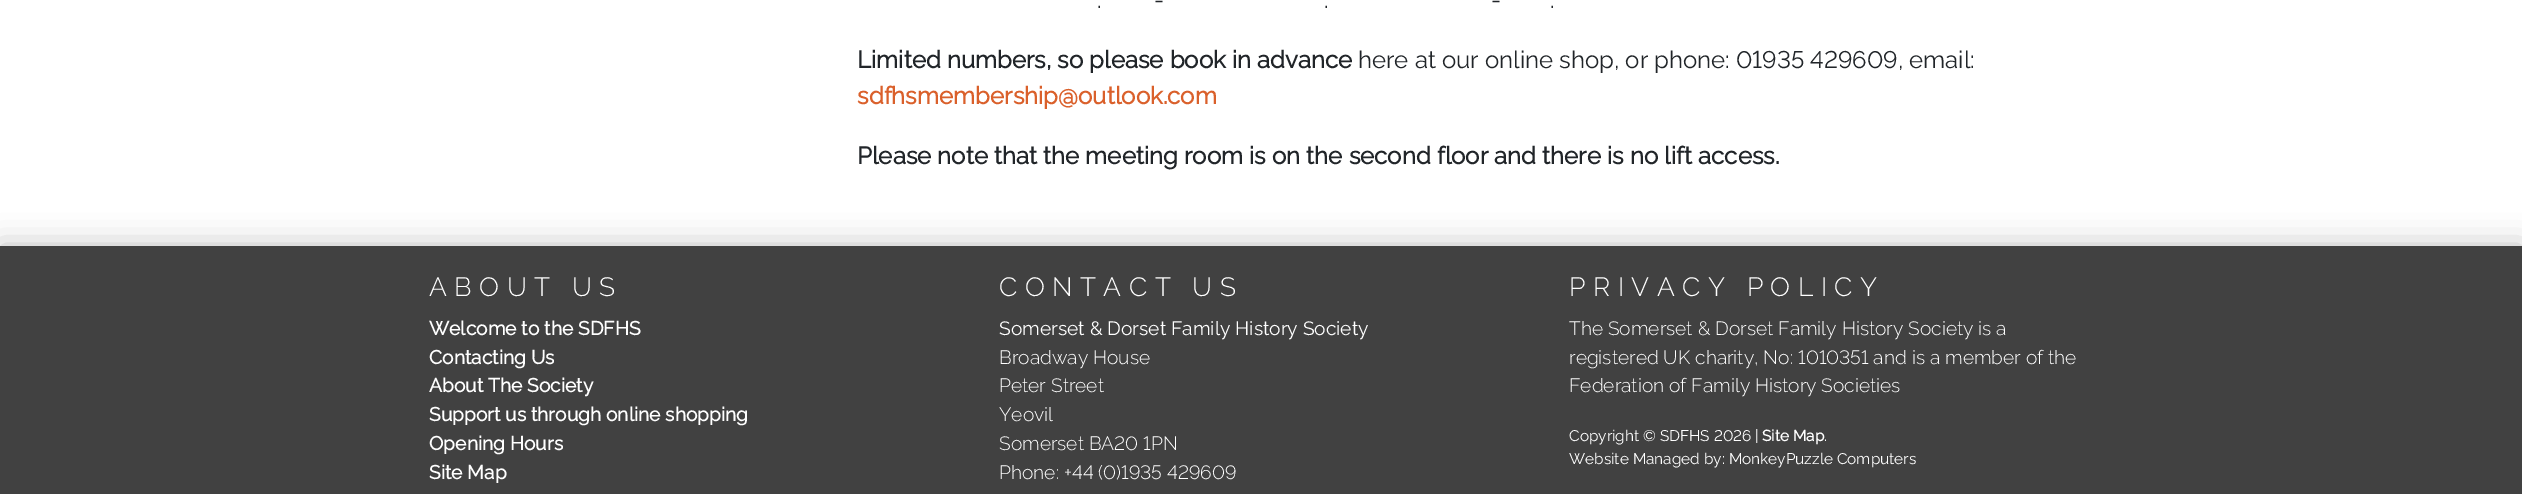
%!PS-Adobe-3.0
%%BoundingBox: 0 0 2522 494
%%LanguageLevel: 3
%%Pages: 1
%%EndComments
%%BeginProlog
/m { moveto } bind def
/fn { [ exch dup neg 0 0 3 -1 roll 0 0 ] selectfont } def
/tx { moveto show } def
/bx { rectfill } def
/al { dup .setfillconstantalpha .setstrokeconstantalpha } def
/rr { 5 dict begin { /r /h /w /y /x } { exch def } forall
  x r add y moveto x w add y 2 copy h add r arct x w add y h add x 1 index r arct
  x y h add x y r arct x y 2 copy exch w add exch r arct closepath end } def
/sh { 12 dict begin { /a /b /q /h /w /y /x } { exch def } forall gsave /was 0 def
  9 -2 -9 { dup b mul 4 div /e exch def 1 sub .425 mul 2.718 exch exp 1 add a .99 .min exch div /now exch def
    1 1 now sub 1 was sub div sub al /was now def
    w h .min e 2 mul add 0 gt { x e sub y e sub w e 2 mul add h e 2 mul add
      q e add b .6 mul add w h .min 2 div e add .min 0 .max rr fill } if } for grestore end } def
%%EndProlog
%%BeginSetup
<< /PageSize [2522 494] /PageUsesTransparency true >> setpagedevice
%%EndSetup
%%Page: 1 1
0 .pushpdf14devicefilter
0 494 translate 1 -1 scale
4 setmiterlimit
1 setgray
0 0 2522 494 bx
/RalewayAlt-Regular 24 fn
0.129 0.145 0.161 setrgbcolor
(-) 1154 8 tx
(-) 1491 8 tx
(.) 1097 8 tx
(.) 1324 8 tx
(.) 1550 8 tx
/Raleway-Bold 24 fn
(Limited numbers, so please book in advance) 857 68 tx
/RalewayAlt-Regular 24 fn
(here at our online shop, or phone: 01935 429609, email:) 1358 68 tx
/Raleway-Bold 24 fn
0.855 0.376 0.169 setrgbcolor
(sdfhsmembership@outlook.com) 857 104 tx
0.129 0.145 0.161 setrgbcolor
(Please note that the meeting room is on the second floor and there is no lift access.) 857 164 tx
0 setgray
0 246 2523 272 0 15 0.25 sh
0.255 setgray
0 246 2522 248 bx
/Raleway-Light 26.4 fn
1 setgray
429 296 m 7.5 0 (ABOUT US) ashow
/Raleway-Bold 19.2 fn
(Welcome to the SDFHS) 429 335 tx
(Contacting Us) 429 364 tx
(About The Society) 429 392 tx
(Support us through online shopping) 429 421 tx
(Opening Hours) 429 450 tx
(Site Map) 429 479 tx
/Raleway-Light 26.4 fn
999 296 m 7.5 0 (CONTACT US) ashow
/Raleway-Regular 19.2 fn
(Somerset & Dorset Family History Society) 999 335 tx
/Raleway-Light 19.2 fn
(Broadway House) 999 364 tx
(Peter Street) 999 392 tx
(Yeovil) 999 421 tx
/RalewayAlt-Light 19.2 fn
(Somerset BA20 1PN) 999 450 tx
(Phone: +44 \(0\)1935 429609) 999 479 tx
/Raleway-Light 26.4 fn
1569 296 m 7.5 0 (PRIVACY POLICY) ashow
/Raleway-Light 19.2 fn
(The Somerset & Dorset Family History Society is a) 1569 335 tx
/RalewayAlt-Light 19.2 fn
(registered UK charity, No: 1010351 and is a member of the) 1569 364 tx
/Raleway-Light 19.2 fn
(Federation of Family History Societies) 1569 392 tx
/RalewayAlt-Regular 15.4 fn
(Copyright © SDFHS 2026) 1569 441 tx
/Raleway-Regular 15.4 fn
(|) 1755 441 tx
/Raleway-Bold 15.4 fn
(Site Map) 1762 441 tx
/Raleway-Regular 15.4 fn
(.) 1824 441 tx
(Website Managed by: MonkeyPuzzle Computers) 1569 464 tx
.poppdf14devicefilter showpage
%%EOF
